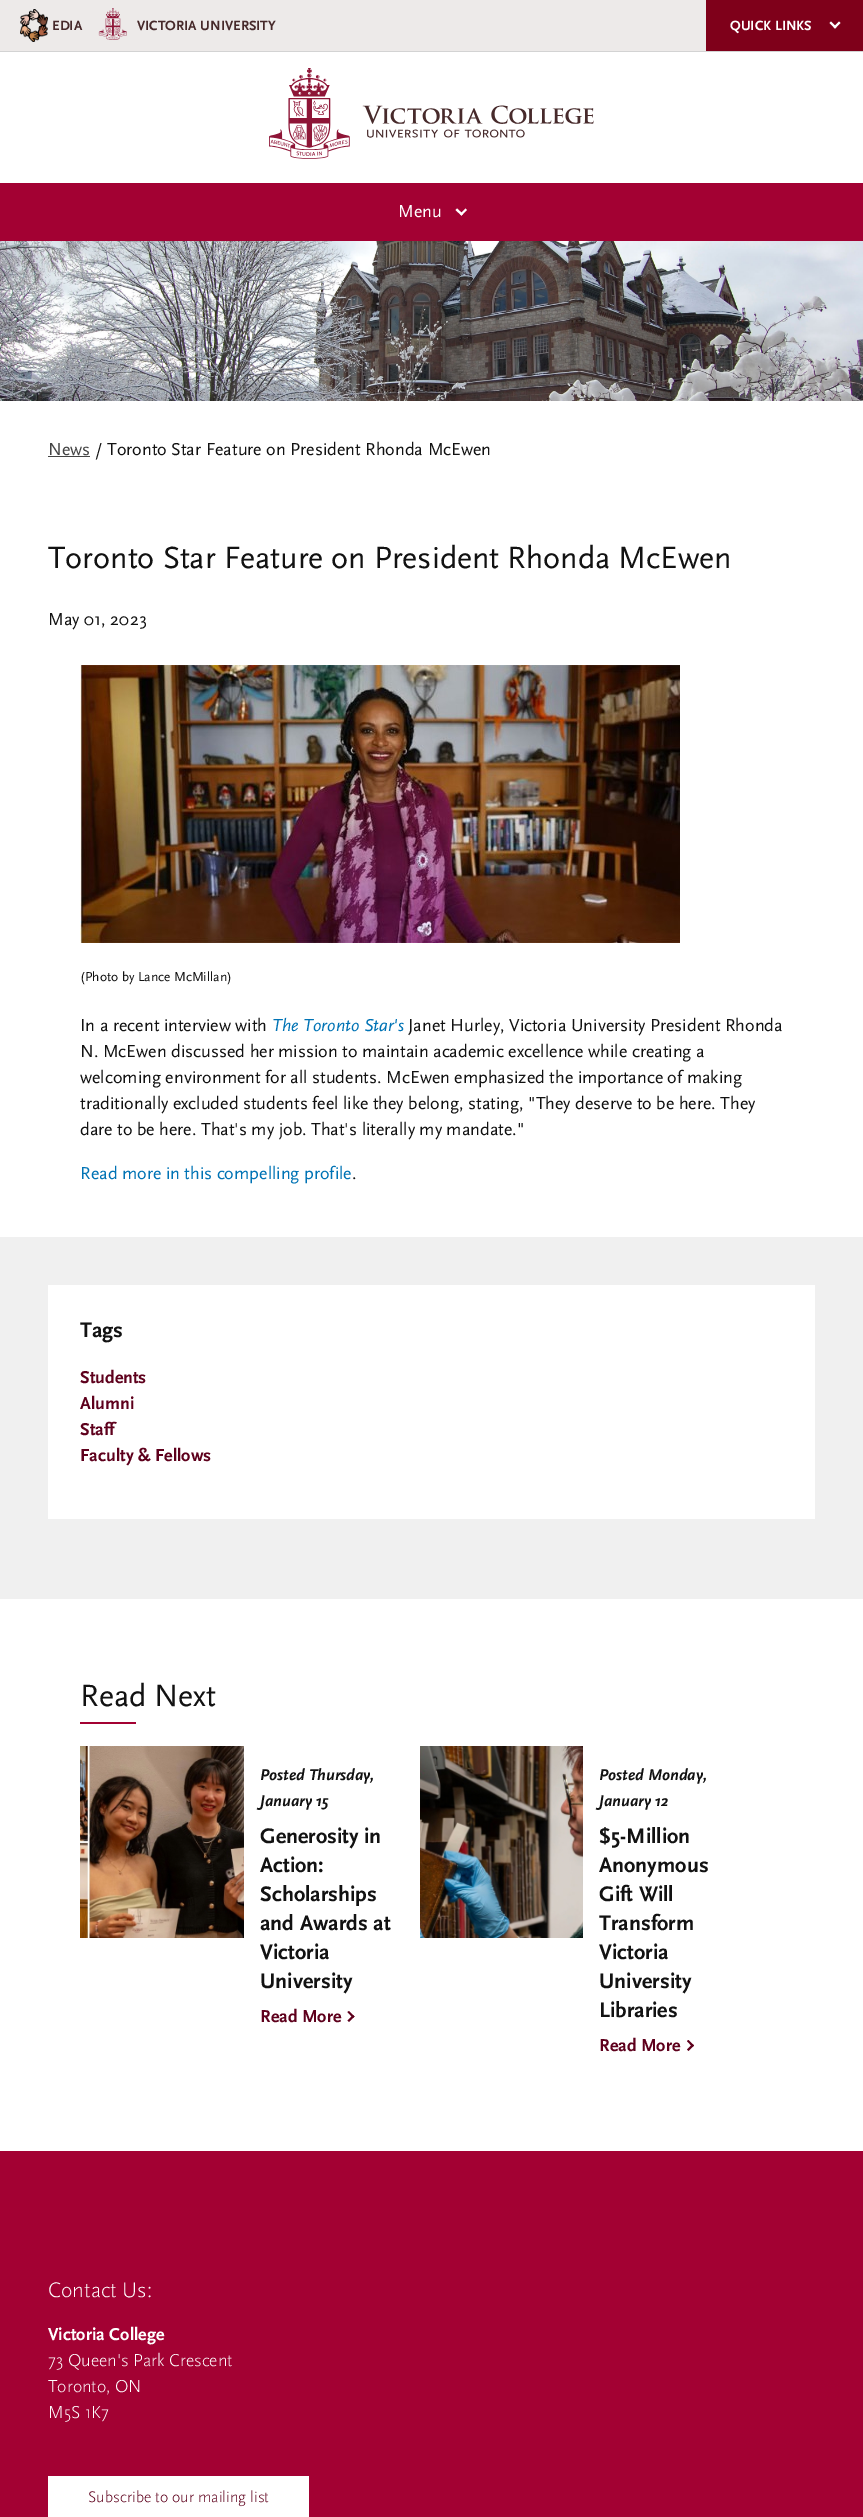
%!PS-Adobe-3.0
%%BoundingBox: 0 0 863 2517
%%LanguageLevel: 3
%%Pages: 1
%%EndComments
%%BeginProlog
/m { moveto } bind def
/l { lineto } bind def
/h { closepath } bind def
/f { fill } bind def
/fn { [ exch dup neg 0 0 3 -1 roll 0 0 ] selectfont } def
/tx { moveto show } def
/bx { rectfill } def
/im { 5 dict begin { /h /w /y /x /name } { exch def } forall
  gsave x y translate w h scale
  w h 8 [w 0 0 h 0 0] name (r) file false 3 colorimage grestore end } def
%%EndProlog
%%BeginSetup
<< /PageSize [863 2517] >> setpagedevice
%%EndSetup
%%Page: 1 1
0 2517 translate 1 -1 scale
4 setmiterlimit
1 setgray
0 0 863 2517 bx
0.929 0.918 0.914 setrgbcolor
0 0 706 51 bx
0.827 setgray
0 51 863 1 bx
(image0.raw) 20 9 28 33 im
/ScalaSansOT-Bold 14 fn
0.275 0.161 0.165 setrgbcolor
(EDIA) 52 30 tx
(image1.raw) 98 8 29 32 im
(VICTORIA UNIVERSITY) 137 30 tx
0.498 0 0.102 setrgbcolor
706 0 157 51 bx
1 setgray
(QUICK LINKS) 730 30 tx
839 21.5 m 840.5 23 l 835 28.5 l 833.5 27 l h f
831 21.5 m 836.5 27 l 835 28.5 l 829.5 23 l h f
(image2.raw) 269 68 325 91 im
0.639 0.004 0.2 setrgbcolor
0 183 863 58 bx
/ScalaSansOT-Regular 18 fn
1 setgray
(Menu) 398 217 tx
465.5 208.5 m 467 210 l 461.5 215.5 l 460 214 l h f
457 208.5 m 463 214 l 461.5 215.5 l 455.5 210 l h f
(image3.raw) 0 241 863 160 im
0.267 setgray
(News) 48 455 tx
48 456 42 1 bx
0.071 setgray
(/ Toronto Star Feature on President Rhonda McEwen) 95 455 tx
/ScalaSansOT-Regular 32 fn
(Toronto Star Feature on President Rhonda McEwen) 48 568 tx
/ScalaSansOT-Regular 18 fn
(May 01, 2023) 48 625 tx
(image4.raw) 80 665 600 278 im
/ScalaSansOT-Regular 13.5 fn
(\(Photo by Lance McMillan\)) 80 981 tx
/ScalaSansOT-Regular 18 fn
(In a recent interview with) 80 1031 tx
/ScalaSansOT-Italic 18 fn
0 0.451 0.71 setrgbcolor
(The Toronto Star's) 272 1031 tx
/ScalaSansOT-Regular 18 fn
0.071 setgray
(Janet Hurley, Victoria University President Rhonda) 408 1031 tx
(N. McEwen discussed her mission to maintain academic excellence while creating a) 80 1057 tx
(welcoming environment for all students. McEwen emphasized the importance of making) 80 1083 tx
(traditionally excluded students feel like they belong, stating, "They deserve to be here. They) 80 1109 tx
(dare to be here. That's my job. That's literally my mandate.") 80 1135 tx
0 0.451 0.71 setrgbcolor
(Read more in this compelling profile) 80 1179 tx
0.071 setgray
(.) 352 1179 tx
0.941 setgray
0 1237 863 362 bx
1 setgray
48 1285 767 234 bx
/ScalaSansOT-Bold 22 fn
0.071 setgray
(Tags) 80 1337 tx
/ScalaSansOT-Bold 18 fn
0.369 0 0.11 setrgbcolor
(Students) 80 1383 tx
(Alumni) 80 1409 tx
(Staff) 80 1435 tx
(Faculty & Fellows) 80 1461 tx
/ScalaSansOT-Regular 32 fn
0.071 setgray
(Read Next) 80 1706 tx
0.639 0.004 0.2 setrgbcolor
80 1722 56 2 bx
(image5.raw) 80 1746 164 192 im
/ScalaSansOT-BoldItalic 16.25 fn
0.071 setgray
(Posted Thursday,) 260 1780 tx
(January 15) 260 1806 tx
/ScalaSansOT-Bold 22 fn
(Generosity in) 260 1843 tx
(Action:) 260 1872 tx
(Scholarships) 260 1901 tx
(and Awards at) 260 1930 tx
(Victoria) 260 1959 tx
(University) 260 1988 tx
/ScalaSansOT-Bold 18 fn
0.369 0 0.11 setrgbcolor
(Read More) 260 2022 tx
347.5 2012 m 349 2011 l 354.5 2016.5 l 353 2018 l h f
347.5 2020.5 m 353 2015 l 354.5 2016.5 l 349 2022 l h f
(image6.raw) 420 1746 163 192 im
/ScalaSansOT-BoldItalic 16.25 fn
0.071 setgray
(Posted Monday,) 599 1780 tx
(January 12) 599 1806 tx
/ScalaSansOT-Bold 22 fn
($5-Million) 599 1843 tx
(Anonymous) 599 1872 tx
(Gift Will) 599 1901 tx
(Transform) 599 1930 tx
(Victoria) 599 1959 tx
(University) 599 1988 tx
(Libraries) 599 2017 tx
/ScalaSansOT-Bold 18 fn
0.369 0 0.11 setrgbcolor
(Read More) 599 2051 tx
687 2041 m 688.5 2040 l 694 2045.5 l 692.5 2047 l h f
687 2049.5 m 692.5 2044 l 694 2045.5 l 688.5 2051 l h f
0.639 0.004 0.2 setrgbcolor
0 2151 863 366 bx
/ScalaSansOT-Light 22 fn
1 setgray
(Contact Us:) 48 2297 tx
/ScalaSansOT-Bold 18 fn
(Victoria College) 48 2340 tx
/ScalaSansOT-Light 18 fn
(73 Queen's Park Crescent) 48 2366 tx
(Toronto, ON) 48 2392 tx
(M5S 1K7) 48 2418 tx
48 2476 261 41 bx
/ScalaSansOT-Light 16 fn
0.369 0 0.11 setrgbcolor
(Subscribe to our mailing list) 88 2502 tx
showpage
%%EOF
